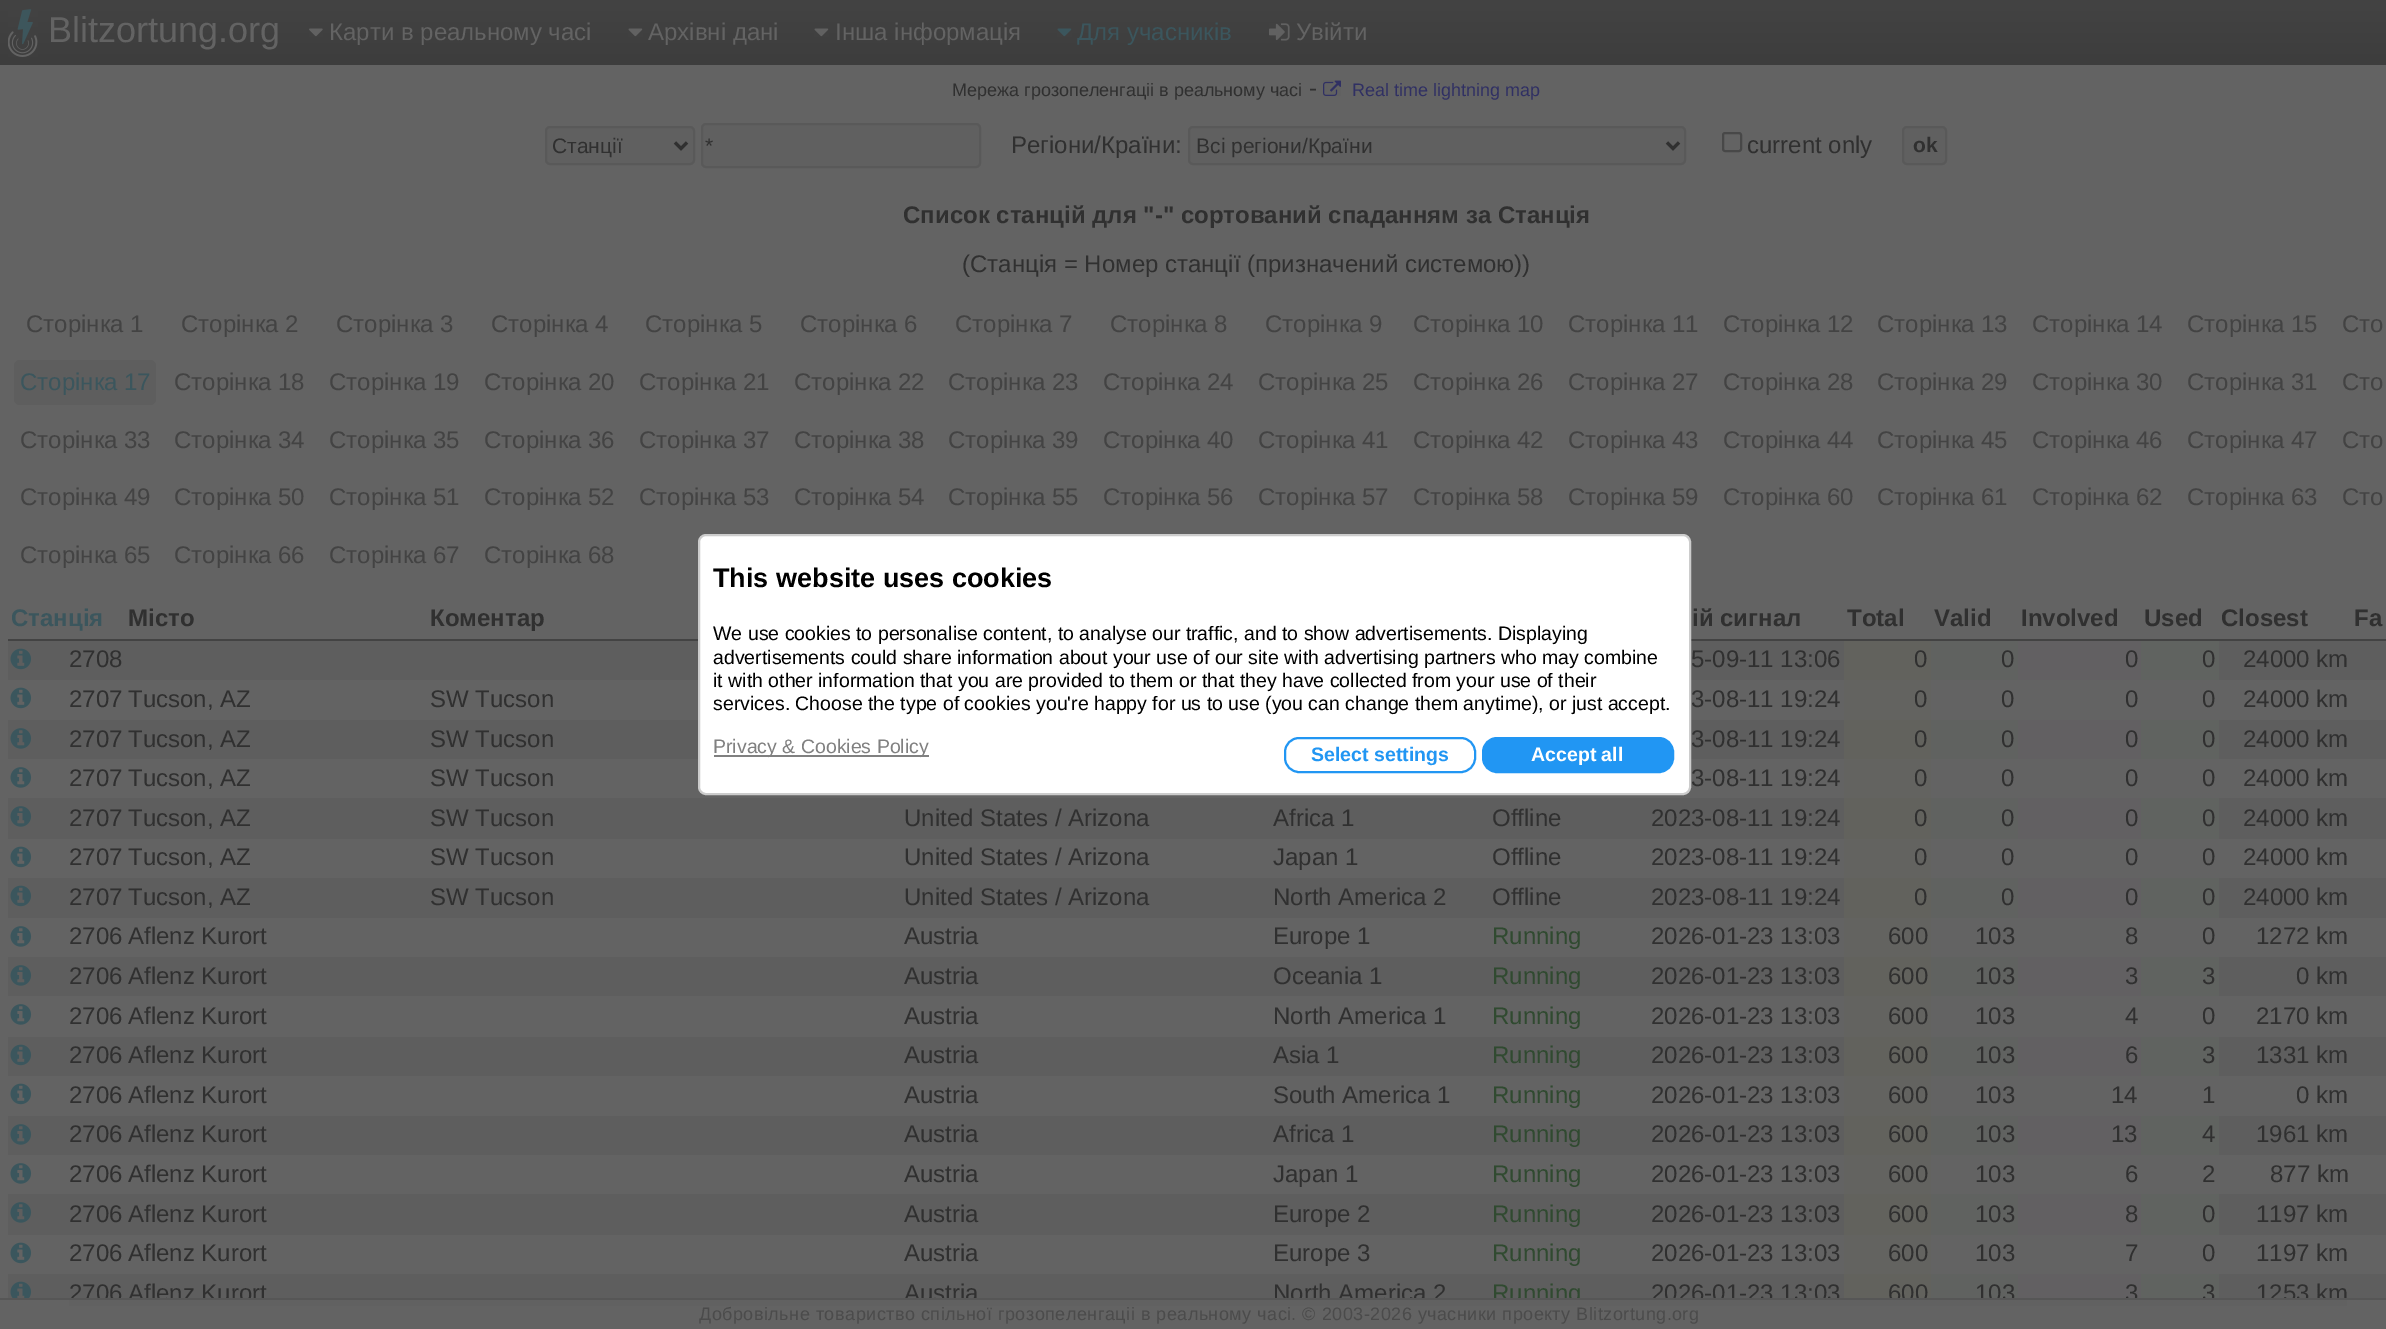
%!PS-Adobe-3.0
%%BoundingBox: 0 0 2386 1329
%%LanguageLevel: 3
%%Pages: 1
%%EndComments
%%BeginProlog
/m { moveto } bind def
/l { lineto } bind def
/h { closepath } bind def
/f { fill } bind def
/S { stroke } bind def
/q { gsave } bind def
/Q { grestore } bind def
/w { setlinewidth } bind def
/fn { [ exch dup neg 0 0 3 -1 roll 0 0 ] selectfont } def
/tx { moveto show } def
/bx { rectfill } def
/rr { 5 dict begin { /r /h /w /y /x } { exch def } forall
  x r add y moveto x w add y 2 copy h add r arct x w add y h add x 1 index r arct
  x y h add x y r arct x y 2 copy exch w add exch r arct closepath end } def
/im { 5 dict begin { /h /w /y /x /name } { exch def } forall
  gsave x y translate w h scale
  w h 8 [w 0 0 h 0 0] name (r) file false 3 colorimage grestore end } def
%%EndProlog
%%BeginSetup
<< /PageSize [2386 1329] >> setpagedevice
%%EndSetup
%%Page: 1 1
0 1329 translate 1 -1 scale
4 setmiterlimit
0.388 setgray
0 0 2386 1329 bx
q 0 0 m 2386 0 l 2386 65 l 0 65 l h clip newpath
<< /ShadingType 2 /ColorSpace /DeviceRGB /Coords [1247 0 1247 65] /Extend [true true] /Function << /FunctionType 2 /Domain [0 1] /C0 [0.263 0.263 0.263] /C1 [0.239 0.239 0.239] /N 1 >> >> shfill Q
(image0.raw) 8 9 30 48 im
/LiberationSans-Regular 36 fn
(Blitzortung.org) 48 42 tx
(image1.raw) 309 28 14 9 im
/LiberationSans-Regular 24 fn
(Карти в реальному часі) 329 40 tx
(image2.raw) 628 28 15 9 im
(Архівні дані) 648 40 tx
(image2.raw) 814 28 15 9 im
(Інша інформація) 835 40 tx
(image3.raw) 1057 28 15 9 im
0.231 0.337 0.365 setrgbcolor
(Для учасників) 1077 40 tx
(image4.raw) 1269 23 21 18 im
0.388 setgray
(Увійти) 1296 40 tx
/LiberationSans-Regular 18 fn
0.188 setgray
(Мережа грозопеленгаціі в реальному часі) 952 96 tx
/LiberationSans-Regular 24 fn
(-) 1309 96 tx
(image5.raw) 1323 80 18 16 im
/LiberationSans-Regular 18 fn
0.188 0.188 0.388 setrgbcolor
(Real time lightning map) 1352 96 tx
0.376 setgray
546 127 148 37 4 rr q f Q
0.349 setgray
2 w
S
0.188 setgray
3 w
675 142.5 m 681 148.5 l 687 142.5 l S
/LiberationSans-Regular 21 fn
(Станції) 552 153 tx
0.376 setgray
702 124 278 43 4 rr q f Q
0.349 setgray
2 w
S
0.188 setgray
(*) 705 153 tx
/LiberationSans-Regular 24 fn
(Регіони/Країни:) 1011 153 tx
0.376 setgray
1189 127 496 37 4 rr q f Q
0.349 setgray
S
0.188 setgray
3 w
1667 142.5 m 1673 148.5 l 1679 142.5 l S
/LiberationSans-Regular 21 fn
(Всі регіони/Країни) 1196 153 tx
0.282 setgray
2 w
1723 133 18 18 2 rr S
/LiberationSans-Regular 24 fn
0.188 setgray
(current only) 1747 153 tx
0.376 setgray
1903 127 43 37 4 rr q f Q
0.349 setgray
S
/LiberationSans-Bold 21 fn
0.188 setgray
(ok) 1913 152 tx
/LiberationSans-Bold 24 fn
(Список станцій для "-" сортований спаданням за Станція) 903 223 tx
/LiberationSans-Regular 24 fn
(\(Станція = Номер станції \(призначений системою\)\)) 962 272 tx
0.263 setgray
(Сторінка 1) 26 332 tx
(Сторінка 2) 181 332 tx
(Сторінка 3) 336 332 tx
(Сторінка 4) 491 332 tx
(Сторінка 5) 645 332 tx
(Сторінка 6) 800 332 tx
(Сторінка 7) 955 332 tx
(Сторінка 8) 1110 332 tx
(Сторінка 9) 1265 332 tx
(Сторінка 10) 1413 332 tx
(Сторінка 11) 1568 332 tx
(Сторінка 12) 1723 332 tx
(Сторінка 13) 1877 332 tx
(Сторінка 14) 2032 332 tx
(Сторінка 15) 2187 332 tx
(Сто) 2342 332 tx
0.369 setgray
14 360 142 45 6 rr f
0.231 0.337 0.365 setrgbcolor
(Сторінка 17) 20 390 tx
0.263 setgray
(Сторінка 18) 174 390 tx
(Сторінка 19) 329 390 tx
(Сторінка 20) 484 390 tx
(Сторінка 21) 639 390 tx
(Сторінка 22) 794 390 tx
(Сторінка 23) 948 390 tx
(Сторінка 24) 1103 390 tx
(Сторінка 25) 1258 390 tx
(Сторінка 26) 1413 390 tx
(Сторінка 27) 1568 390 tx
(Сторінка 28) 1723 390 tx
(Сторінка 29) 1877 390 tx
(Сторінка 30) 2032 390 tx
(Сторінка 31) 2187 390 tx
(Сто) 2342 390 tx
(Сторінка 33) 20 448 tx
(Сторінка 34) 174 448 tx
(Сторінка 35) 329 448 tx
(Сторінка 36) 484 448 tx
(Сторінка 37) 639 448 tx
(Сторінка 38) 794 448 tx
(Сторінка 39) 948 448 tx
(Сторінка 40) 1103 448 tx
(Сторінка 41) 1258 448 tx
(Сторінка 42) 1413 448 tx
(Сторінка 43) 1568 448 tx
(Сторінка 44) 1723 448 tx
(Сторінка 45) 1877 448 tx
(Сторінка 46) 2032 448 tx
(Сторінка 47) 2187 448 tx
(Сто) 2342 448 tx
(Сторінка 49) 20 505 tx
(Сторінка 50) 174 505 tx
(Сторінка 51) 329 505 tx
(Сторінка 52) 484 505 tx
(Сторінка 53) 639 505 tx
(Сторінка 54) 794 505 tx
(Сторінка 55) 948 505 tx
(Сторінка 56) 1103 505 tx
(Сторінка 57) 1258 505 tx
(Сторінка 58) 1413 505 tx
(Сторінка 59) 1568 505 tx
(Сторінка 60) 1723 505 tx
(Сторінка 61) 1877 505 tx
(Сторінка 62) 2032 505 tx
(Сторінка 63) 2187 505 tx
(Сто) 2342 505 tx
(Сторінка 65) 20 563 tx
(Сторінка 66) 174 563 tx
(Сторінка 67) 329 563 tx
(Сторінка 68) 484 563 tx
/LiberationSans-Bold 24 fn
0.231 0.337 0.365 setrgbcolor
(Станція) 11 626 tx
0.188 setgray
(Місто) 128 626 tx
(Коментар) 430 626 tx
(ій сигнал) 1692 626 tx
(Total) 1847 626 tx
(Valid) 1934 626 tx
(Involved) 2021 626 tx
(Used) 2144 626 tx
(Closest) 2221 626 tx
(Fa) 2354 626 tx
0.263 setgray
8 639 2378 2 bx
0.369 setgray
8 641 2378 39 bx
(image6.raw) 10 648 22 22 im
/LiberationSans-Regular 24 fn
0.188 setgray
(2708) 69 667 tx
(5-09-11 13:06) 1691 667 tx
0.384 0.384 0.365 setrgbcolor
1844 641 87 39 bx
0.188 setgray
(0) 1914 667 tx
0.376 0.384 0.376 setrgbcolor
1931 641 87 39 bx
0.188 setgray
(0) 2001 667 tx
0.384 0.376 0.384 setrgbcolor
2018 641 123 39 bx
0.188 setgray
(0) 2125 667 tx
0.376 0.388 0.376 setrgbcolor
2141 641 78 39 bx
0.188 setgray
(0) 2202 667 tx
(24000 km) 2243 667 tx
(image7.raw) 10 687 22 22 im
(2707) 69 707 tx
(Tucson, AZ) 128 707 tx
(SW Tucson) 430 707 tx
(3-08-11 19:24) 1691 707 tx
0.388 0.388 0.376 setrgbcolor
1844 680 87 40 bx
0.188 setgray
(0) 1914 707 tx
(0) 2001 707 tx
(0) 2125 707 tx
(0) 2202 707 tx
(24000 km) 2243 707 tx
0.369 setgray
8 720 2378 39 bx
(image8.raw) 10 728 22 21 im
0.188 setgray
(2707) 69 747 tx
(Tucson, AZ) 128 747 tx
(SW Tucson) 430 747 tx
(3-08-11 19:24) 1691 747 tx
0.384 0.384 0.365 setrgbcolor
1844 720 87 39 bx
0.188 setgray
(0) 1914 747 tx
0.376 0.384 0.376 setrgbcolor
1931 720 87 39 bx
0.188 setgray
(0) 2001 747 tx
0.384 0.376 0.384 setrgbcolor
2018 720 123 39 bx
0.188 setgray
(0) 2125 747 tx
0.376 0.388 0.376 setrgbcolor
2141 720 78 39 bx
0.188 setgray
(0) 2202 747 tx
(24000 km) 2243 747 tx
(image9.raw) 10 767 22 21 im
(2707) 69 786 tx
(Tucson, AZ) 128 786 tx
(SW Tucson) 430 786 tx
(3-08-11 19:24) 1691 786 tx
0.388 0.388 0.376 setrgbcolor
1844 759 87 39 bx
0.188 setgray
(0) 1914 786 tx
(0) 2001 786 tx
(0) 2125 786 tx
(0) 2202 786 tx
(24000 km) 2243 786 tx
0.369 setgray
8 798 2378 41 bx
(image8.raw) 10 806 22 21 im
0.188 setgray
(2707) 69 826 tx
(Tucson, AZ) 128 826 tx
(SW Tucson) 430 826 tx
(United States / Arizona) 904 826 tx
(Africa 1) 1273 826 tx
(Offline) 1492 826 tx
(2023-08-11 19:24) 1651 826 tx
0.384 0.384 0.365 setrgbcolor
1844 798 87 41 bx
0.188 setgray
(0) 1914 826 tx
0.376 0.384 0.376 setrgbcolor
1931 798 87 41 bx
0.188 setgray
(0) 2001 826 tx
0.384 0.376 0.384 setrgbcolor
2018 798 123 41 bx
0.188 setgray
(0) 2125 826 tx
0.376 0.388 0.376 setrgbcolor
2141 798 78 41 bx
0.188 setgray
(0) 2202 826 tx
(24000 km) 2243 826 tx
(image7.raw) 10 846 22 22 im
(2707) 69 865 tx
(Tucson, AZ) 128 865 tx
(SW Tucson) 430 865 tx
(United States / Arizona) 904 865 tx
(Japan 1) 1273 865 tx
(Offline) 1492 865 tx
(2023-08-11 19:24) 1651 865 tx
0.388 0.388 0.376 setrgbcolor
1844 839 87 39 bx
0.188 setgray
(0) 1914 865 tx
(0) 2001 865 tx
(0) 2125 865 tx
(0) 2202 865 tx
(24000 km) 2243 865 tx
0.369 setgray
8 878 2378 40 bx
(image6.raw) 10 885 22 22 im
0.188 setgray
(2707) 69 905 tx
(Tucson, AZ) 128 905 tx
(SW Tucson) 430 905 tx
(United States / Arizona) 904 905 tx
(North America 2) 1273 905 tx
(Offline) 1492 905 tx
(2023-08-11 19:24) 1651 905 tx
0.384 0.384 0.365 setrgbcolor
1844 878 87 40 bx
0.188 setgray
(0) 1914 905 tx
0.376 0.384 0.376 setrgbcolor
1931 878 87 40 bx
0.188 setgray
(0) 2001 905 tx
0.384 0.376 0.384 setrgbcolor
2018 878 123 40 bx
0.188 setgray
(0) 2125 905 tx
0.376 0.388 0.376 setrgbcolor
2141 878 78 40 bx
0.188 setgray
(0) 2202 905 tx
(24000 km) 2243 905 tx
(image9.raw) 10 926 22 21 im
(2706) 69 944 tx
(Aflenz Kurort) 128 944 tx
(Austria) 904 944 tx
(Europe 1) 1273 944 tx
0.188 0.29 0.188 setrgbcolor
(Running) 1492 944 tx
0.188 setgray
(2026-01-23 13:03) 1651 944 tx
0.388 0.388 0.376 setrgbcolor
1844 918 87 39 bx
0.188 setgray
(600) 1888 944 tx
(103) 1975 944 tx
(8) 2125 944 tx
(0) 2202 944 tx
(1272 km) 2256 944 tx
0.369 setgray
8 957 2378 39 bx
(image8.raw) 10 965 22 21 im
0.188 setgray
(2706) 69 984 tx
(Aflenz Kurort) 128 984 tx
(Austria) 904 984 tx
(Oceania 1) 1273 984 tx
0.188 0.29 0.188 setrgbcolor
(Running) 1492 984 tx
0.188 setgray
(2026-01-23 13:03) 1651 984 tx
0.384 0.384 0.365 setrgbcolor
1844 957 87 39 bx
0.188 setgray
(600) 1888 984 tx
0.376 0.384 0.376 setrgbcolor
1931 957 87 39 bx
0.188 setgray
(103) 1975 984 tx
0.384 0.376 0.384 setrgbcolor
2018 957 123 39 bx
0.188 setgray
(3) 2125 984 tx
0.376 0.388 0.376 setrgbcolor
2141 957 78 39 bx
0.188 setgray
(3) 2202 984 tx
(0 km) 2296 984 tx
(image9.raw) 10 1004 22 21 im
(2706) 69 1024 tx
(Aflenz Kurort) 128 1024 tx
(Austria) 904 1024 tx
(North America 1) 1273 1024 tx
0.188 0.29 0.188 setrgbcolor
(Running) 1492 1024 tx
0.188 setgray
(2026-01-23 13:03) 1651 1024 tx
0.388 0.388 0.376 setrgbcolor
1844 996 87 41 bx
0.188 setgray
(600) 1888 1024 tx
(103) 1975 1024 tx
(4) 2125 1024 tx
(0) 2202 1024 tx
(2170 km) 2256 1024 tx
0.369 setgray
8 1037 2378 39 bx
(image6.raw) 10 1044 22 22 im
0.188 setgray
(2706) 69 1063 tx
(Aflenz Kurort) 128 1063 tx
(Austria) 904 1063 tx
(Asia 1) 1273 1063 tx
0.188 0.29 0.188 setrgbcolor
(Running) 1492 1063 tx
0.188 setgray
(2026-01-23 13:03) 1651 1063 tx
0.384 0.384 0.365 setrgbcolor
1844 1037 87 39 bx
0.188 setgray
(600) 1888 1063 tx
0.376 0.384 0.376 setrgbcolor
1931 1037 87 39 bx
0.188 setgray
(103) 1975 1063 tx
0.384 0.376 0.384 setrgbcolor
2018 1037 123 39 bx
0.188 setgray
(6) 2125 1063 tx
0.376 0.388 0.376 setrgbcolor
2141 1037 78 39 bx
0.188 setgray
(3) 2202 1063 tx
(1331 km) 2256 1063 tx
(image7.raw) 10 1083 22 22 im
(2706) 69 1103 tx
(Aflenz Kurort) 128 1103 tx
(Austria) 904 1103 tx
(South America 1) 1273 1103 tx
0.188 0.29 0.188 setrgbcolor
(Running) 1492 1103 tx
0.188 setgray
(2026-01-23 13:03) 1651 1103 tx
0.388 0.388 0.376 setrgbcolor
1844 1076 87 40 bx
0.188 setgray
(600) 1888 1103 tx
(103) 1975 1103 tx
(14) 2111 1103 tx
(1) 2202 1103 tx
(0 km) 2296 1103 tx
0.369 setgray
8 1116 2378 39 bx
(image8.raw) 10 1124 22 21 im
0.188 setgray
(2706) 69 1142 tx
(Aflenz Kurort) 128 1142 tx
(Austria) 904 1142 tx
(Africa 1) 1273 1142 tx
0.188 0.29 0.188 setrgbcolor
(Running) 1492 1142 tx
0.188 setgray
(2026-01-23 13:03) 1651 1142 tx
0.384 0.384 0.365 setrgbcolor
1844 1116 87 39 bx
0.188 setgray
(600) 1888 1142 tx
0.376 0.384 0.376 setrgbcolor
1931 1116 87 39 bx
0.188 setgray
(103) 1975 1142 tx
0.384 0.376 0.384 setrgbcolor
2018 1116 123 39 bx
0.188 setgray
(13) 2111 1142 tx
0.376 0.388 0.376 setrgbcolor
2141 1116 78 39 bx
0.188 setgray
(4) 2202 1142 tx
(1961 km) 2256 1142 tx
(image9.raw) 10 1163 22 21 im
(2706) 69 1182 tx
(Aflenz Kurort) 128 1182 tx
(Austria) 904 1182 tx
(Japan 1) 1273 1182 tx
0.188 0.29 0.188 setrgbcolor
(Running) 1492 1182 tx
0.188 setgray
(2026-01-23 13:03) 1651 1182 tx
0.388 0.388 0.376 setrgbcolor
1844 1155 87 39 bx
0.188 setgray
(600) 1888 1182 tx
(103) 1975 1182 tx
(6) 2125 1182 tx
(2) 2202 1182 tx
(877 km) 2270 1182 tx
0.369 setgray
8 1194 2378 41 bx
(image8.raw) 10 1202 22 21 im
0.188 setgray
(2706) 69 1222 tx
(Aflenz Kurort) 128 1222 tx
(Austria) 904 1222 tx
(Europe 2) 1273 1222 tx
0.188 0.29 0.188 setrgbcolor
(Running) 1492 1222 tx
0.188 setgray
(2026-01-23 13:03) 1651 1222 tx
0.384 0.384 0.365 setrgbcolor
1844 1194 87 41 bx
0.188 setgray
(600) 1888 1222 tx
0.376 0.384 0.376 setrgbcolor
1931 1194 87 41 bx
0.188 setgray
(103) 1975 1222 tx
0.384 0.376 0.384 setrgbcolor
2018 1194 123 41 bx
0.188 setgray
(8) 2125 1222 tx
0.376 0.388 0.376 setrgbcolor
2141 1194 78 41 bx
0.188 setgray
(0) 2202 1222 tx
(1197 km) 2256 1222 tx
(image7.raw) 10 1242 22 22 im
(2706) 69 1261 tx
(Aflenz Kurort) 128 1261 tx
(Austria) 904 1261 tx
(Europe 3) 1273 1261 tx
0.188 0.29 0.188 setrgbcolor
(Running) 1492 1261 tx
0.188 setgray
(2026-01-23 13:03) 1651 1261 tx
0.388 0.388 0.376 setrgbcolor
1844 1235 87 39 bx
0.188 setgray
(600) 1888 1261 tx
(103) 1975 1261 tx
(7) 2125 1261 tx
(0) 2202 1261 tx
(1197 km) 2256 1261 tx
0.369 setgray
8 1274 2378 24 bx
(image10.raw) 10 1281 22 17 im
0.188 setgray
(2706) 69 1301 tx
(Aflenz Kurort) 128 1301 tx
(Austria) 904 1301 tx
(North America 2) 1273 1301 tx
0.188 0.29 0.188 setrgbcolor
(Running) 1492 1301 tx
0.188 setgray
(2026-01-23 13:03) 1651 1301 tx
0.384 0.384 0.365 setrgbcolor
1844 1274 87 24 bx
0.188 setgray
(600) 1888 1301 tx
0.376 0.384 0.376 setrgbcolor
1931 1274 87 24 bx
0.188 setgray
(103) 1975 1301 tx
0.384 0.376 0.384 setrgbcolor
2018 1274 123 24 bx
0.188 setgray
(3) 2125 1301 tx
0.376 0.388 0.376 setrgbcolor
2141 1274 78 24 bx
0.188 setgray
(3) 2202 1301 tx
(1253 km) 2256 1301 tx
1 setgray
699 535 991 259 7 rr q f Q
0.8 setgray
S
/LiberationSans-Bold 27 fn
0 setgray
(This website uses cookies) 713 587 tx
/LiberationSans-Regular 19.5 fn
(We use cookies to personalise content, to analyse our traffic, and to show advertisements. Displaying) 713 640 tx
(advertisements could share information about your use of our site with advertising partners who may combine) 713 664 tx
(it with other information that you are provided to them or that they have collected from your use of their) 713 687 tx
(services. Choose the type of cookies you're happy for us to use \(you can change them anytime\), or just accept.) 713 710 tx
0.502 setgray
714 755 215 2 bx
(Privacy & Cookies Policy) 713 753 tx
0.129 0.588 0.953 setrgbcolor
1285 738 190 34 14 rr S
/LiberationSans-Bold 19.5 fn
(Select settings) 1311 761 tx
1483 738 190 34 14 rr q f Q
S
1 setgray
(Accept all) 1531 761 tx
0.38 setgray
69 1300 2278 6 bx
0.337 setgray
0 1298 2386 2 bx
/LiberationSans-Regular 18 fn
0.294 setgray
699 1320 m 0.49 0 (Добровільне товариство спільної грозопеленгаціі в реальному часі. © 2003-2026 учасники проекту Blitzortung.org) ashow
showpage
%%EOF
